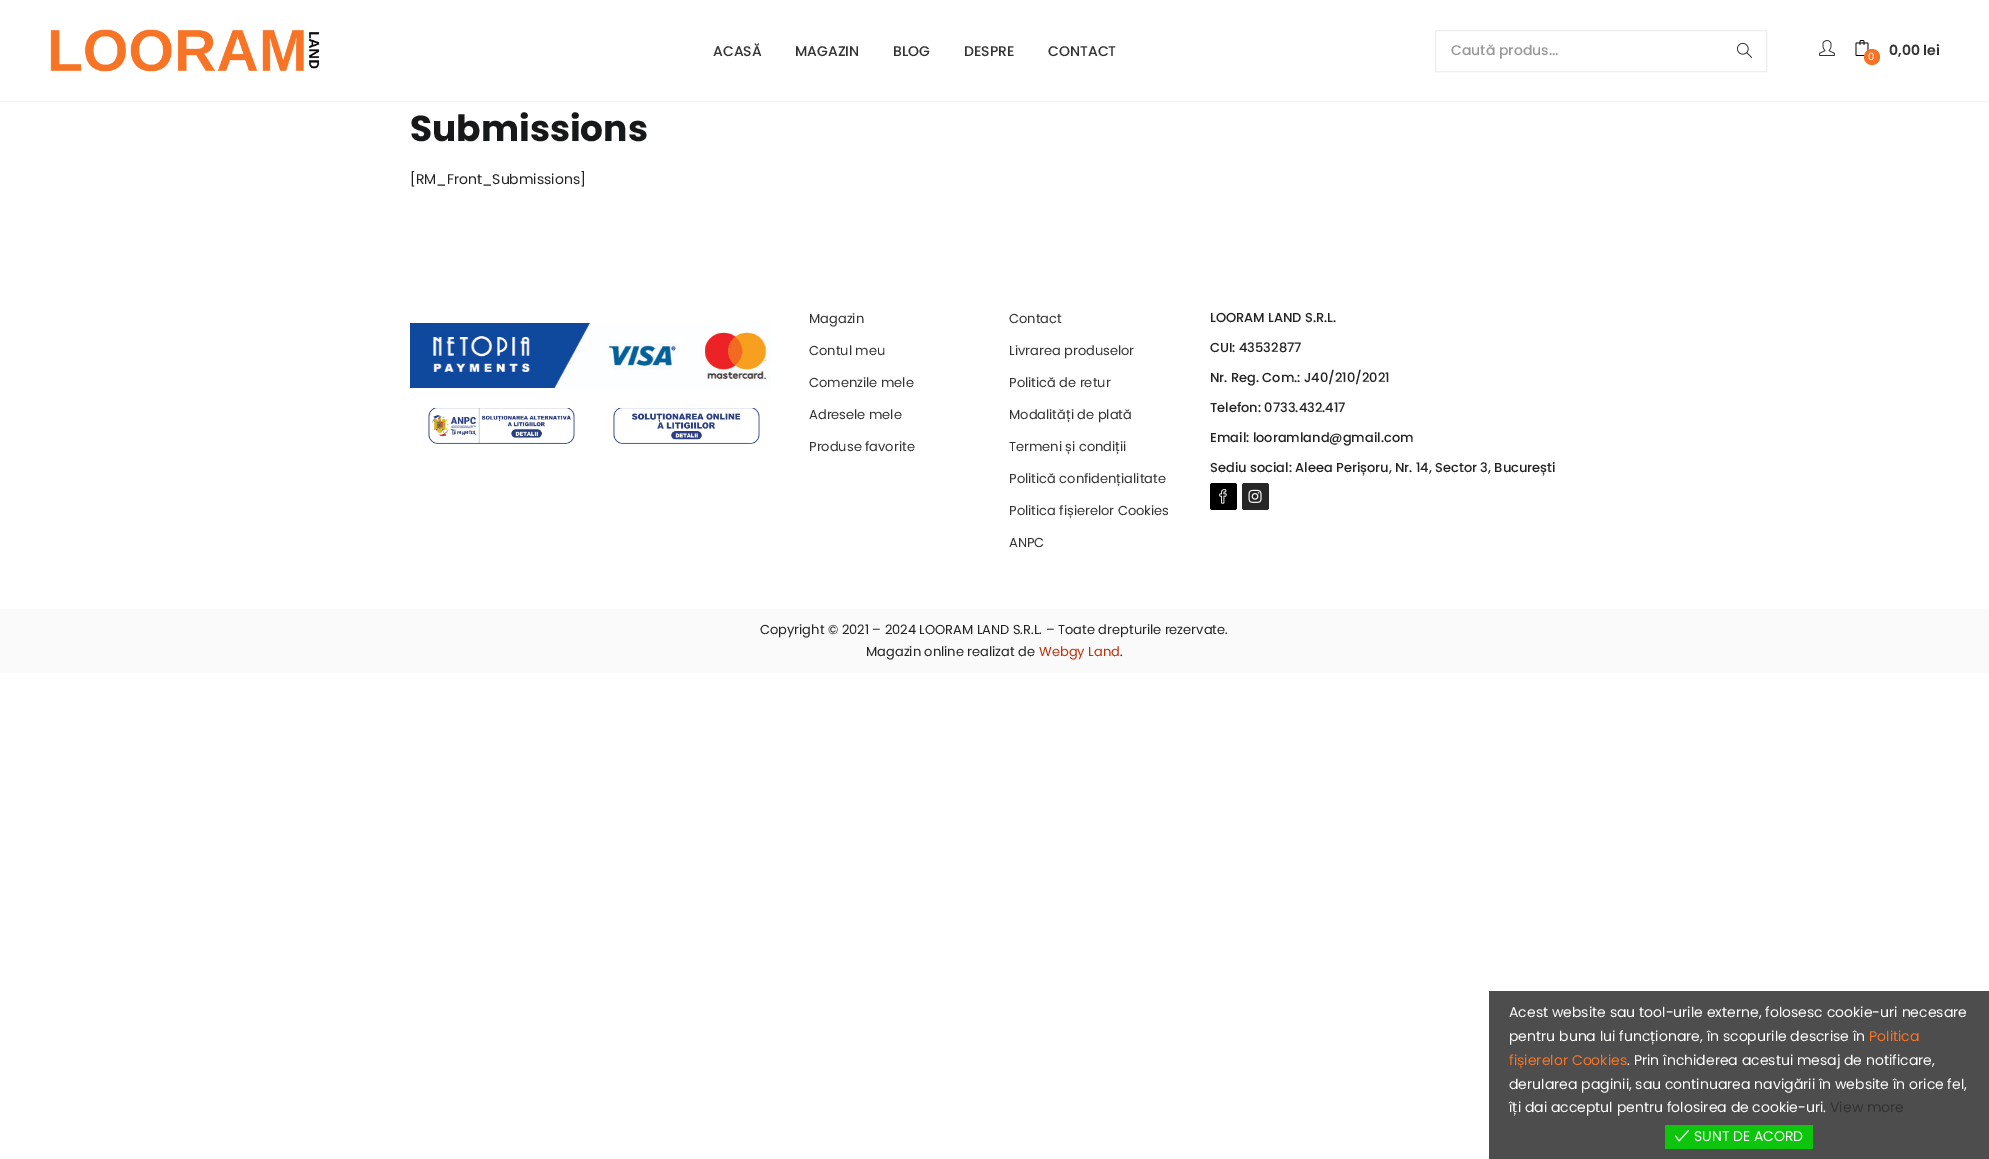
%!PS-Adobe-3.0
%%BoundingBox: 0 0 1989 1159
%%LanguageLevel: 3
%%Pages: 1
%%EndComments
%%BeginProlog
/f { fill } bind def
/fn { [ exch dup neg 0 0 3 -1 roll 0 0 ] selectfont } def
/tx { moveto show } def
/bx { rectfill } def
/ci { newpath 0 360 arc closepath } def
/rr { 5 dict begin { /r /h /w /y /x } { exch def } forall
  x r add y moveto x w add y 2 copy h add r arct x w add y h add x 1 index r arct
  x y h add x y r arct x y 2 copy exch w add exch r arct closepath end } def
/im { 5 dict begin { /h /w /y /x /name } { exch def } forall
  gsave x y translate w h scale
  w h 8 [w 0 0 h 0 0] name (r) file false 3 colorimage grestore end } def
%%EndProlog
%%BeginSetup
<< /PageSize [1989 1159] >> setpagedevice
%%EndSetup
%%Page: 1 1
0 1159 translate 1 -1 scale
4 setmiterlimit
1 setgray
0 0 1989 1159 bx
(image0.raw) 50 29 270 43 im
/Poppins-Medium 14 fn
0.196 setgray
(ACASĂ) 713 56 tx
(MAGAZIN) 795 56 tx
(BLOG) 893 56 tx
(DESPRE) 964 56 tx
(CONTACT) 1048 56 tx
0.933 setgray
1435.5 30.5 331 41 rectstroke
0.6 setgray
(Caută produs...) 1451 55 tx
(image1.raw) 1737 42 15 16 im
(image2.raw) 1819 40 16 16 im
(image3.raw) 1855 40 14 16 im
0.969 0.455 0.149 setrgbcolor
1872 57 8 ci f
/Poppins-Regular 10 fn
1 setgray
(0) 1868 60 tx
/Poppins-SemiBold 14 fn
0.196 setgray
(0,00 lei) 1889 55 tx
0.961 setgray
0 101 1989 1 bx
/Poppins-Bold 36 fn
0.09 0.094 0.102 setrgbcolor
(Submissions) 410 141 tx
/Poppins-Regular 14 fn
0.137 setgray
([RM_Front_Submissions]) 410 184 tx
(image4.raw) 410 323 361 65 im
(image5.raw) 428 408 147 36 im
(image6.raw) 613 408 147 36 im
/Poppins-Regular 13 fn
0.196 setgray
(Magazin) 809 323 tx
(Contul meu) 809 355 tx
(Comenzile mele) 809 387 tx
(Adresele mele) 809 419 tx
(Produse favorite) 809 451 tx
(Contact) 1009 323 tx
(Livrarea produselor) 1009 355 tx
(Politică de retur) 1009 387 tx
(Modalități de plată) 1009 419 tx
(Termeni și condiții) 1009 451 tx
(Politică confidențialitate) 1009 483 tx
(Politica fișierelor Cookies) 1009 515 tx
(ANPC) 1009 547 tx
/Poppins-Medium 13 fn
0.137 setgray
(LOORAM LAND S.R.L.) 1210 322 tx
(CUI: 43532877) 1210 352 tx
(Nr. Reg. Com.: J40/210/2021) 1210 382 tx
(Telefon: 0733.432.417) 1210 412 tx
(Email: looramland@gmail.com) 1210 442 tx
(Sediu social: Aleea Perișoru, Nr. 14, Sector 3, București) 1210 472 tx
0 setgray
1210 483 27 27 2.5 rr f
(image7.raw) 1219 489 8 15 im
0.149 setgray
1242 483 27 27 2.5 rr f
(image8.raw) 1248 489 14 14 im
0.98 setgray
0 609 1989 64 bx
/Poppins-Regular 13 fn
0.137 setgray
(Copyright © 2021 – 2024 LOORAM LAND S.R.L. – Toate drepturile rezervate.) 760 634 tx
(Magazin online realizat de) 866 656 tx
0.769 0.18 0.027 setrgbcolor
(Webgy Land) 1039 656 tx
0.137 setgray
(.) 1120 656 tx
0.302 setgray
1489 991 500 168 bx
/Poppins-Regular 14 fn
1 setgray
(Acest website sau tool-urile externe, folosesc cookie-uri necesare) 1509 1017 tx
(pentru buna lui funcționare, în scopurile descrise în) 1509 1041 tx
0.969 0.455 0.149 setrgbcolor
(Politica) 1869 1041 tx
(fișierelor Cookies) 1509 1065 tx
1 setgray
(. Prin închiderea acestui mesaj de notificare,) 1627 1065 tx
(derularea paginii, sau continuarea navigării în website în orice fel,) 1509 1089 tx
(îți dai acceptul pentru folosirea de cookie-uri.) 1509 1112 tx
0.196 setgray
(View more) 1830 1112 tx
0.055 0.773 0.055 setrgbcolor
1665 1125 148 24 bx
(image9.raw) 1675 1130 14 12 im
1 setgray
(SUNT DE ACORD) 1694 1141 tx
showpage
%%EOF
